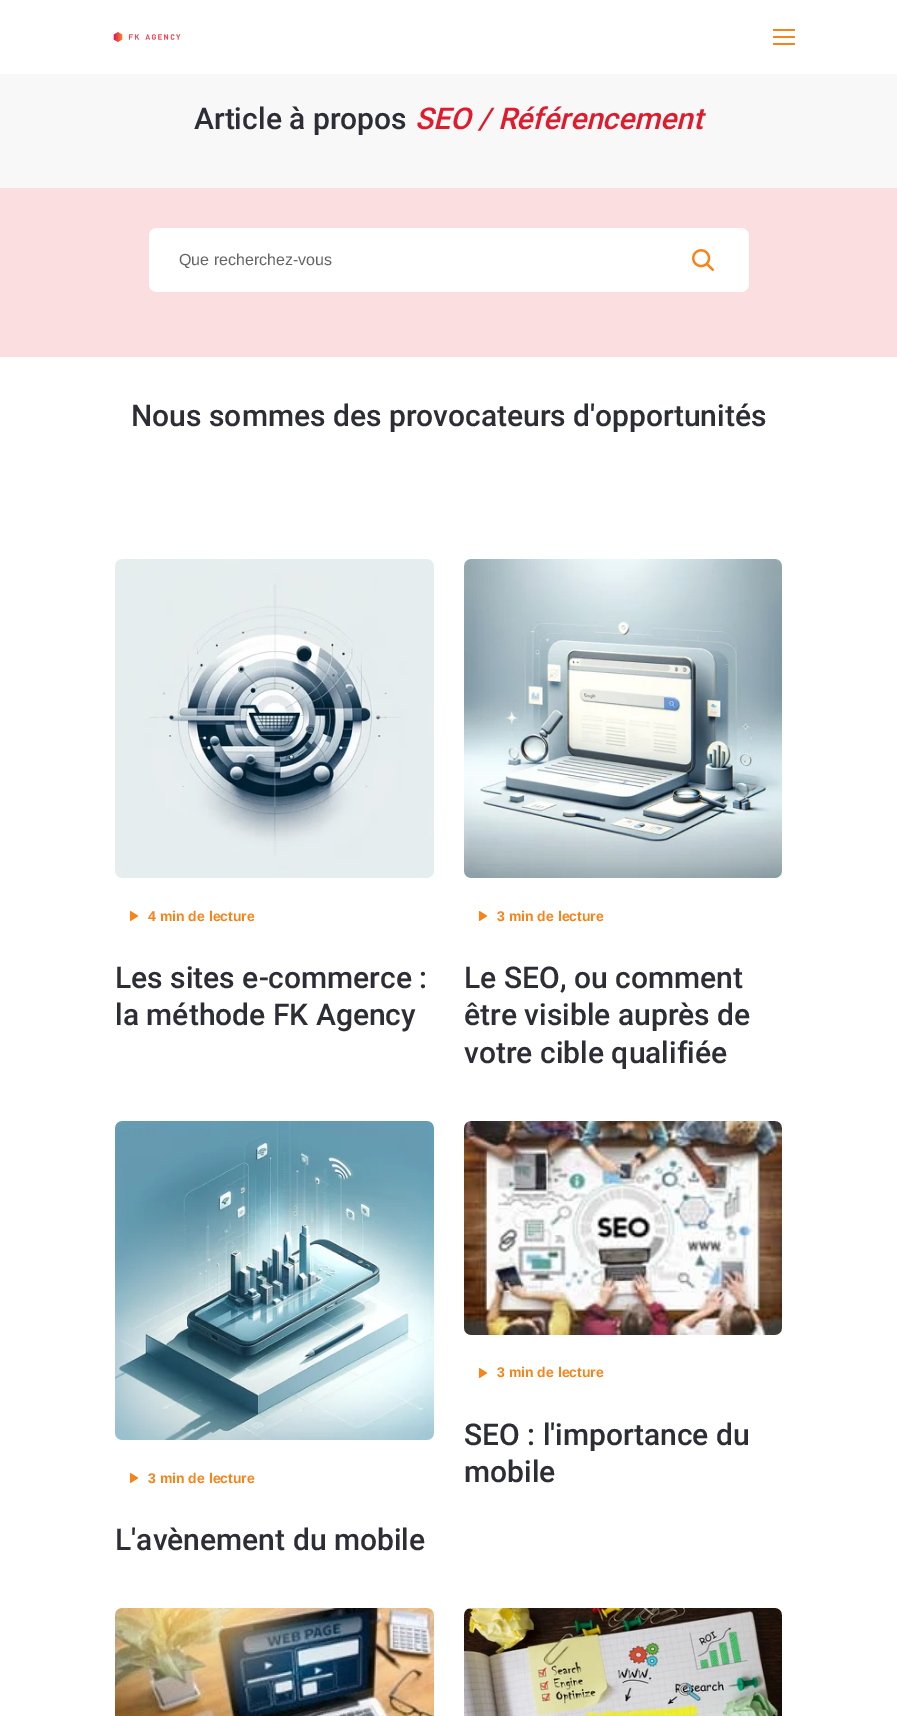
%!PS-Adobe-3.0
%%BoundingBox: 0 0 897 1716
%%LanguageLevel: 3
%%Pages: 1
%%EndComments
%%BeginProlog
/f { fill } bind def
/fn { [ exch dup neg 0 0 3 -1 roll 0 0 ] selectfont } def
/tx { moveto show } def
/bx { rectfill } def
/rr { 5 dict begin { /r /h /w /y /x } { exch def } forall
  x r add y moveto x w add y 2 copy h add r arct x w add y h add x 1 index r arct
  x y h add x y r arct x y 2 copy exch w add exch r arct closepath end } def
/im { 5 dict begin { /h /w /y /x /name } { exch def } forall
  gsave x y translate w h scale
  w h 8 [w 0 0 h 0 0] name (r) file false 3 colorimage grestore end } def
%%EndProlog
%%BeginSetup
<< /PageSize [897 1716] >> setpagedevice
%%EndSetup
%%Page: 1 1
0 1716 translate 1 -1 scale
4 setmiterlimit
1 setgray
0 0 897 1716 bx
(image0.raw) 113 32 68 10 im
0.969 0.514 0.098 setrgbcolor
773 36 22 2 1 rr f
773 29 22 2 1 rr f
773 43 22 2 1 rr f
0.973 setgray
0 74 897 114 bx
/Roboto-Medium 30 fn
0.176 0.176 0.208 setrgbcolor
(Article à propos) 194 129 tx
/Roboto-MediumItalic 30 fn
0.867 0.11 0.18 setrgbcolor
(SEO / Référencement) 415 129 tx
0.98 0.871 0.878 setrgbcolor
0 188 897 169 bx
1 setgray
149 228 600 64 8 rr f
/LiberationSans-Regular 16 fn
0.396 0.392 0.392 setrgbcolor
(Que recherchez-vous) 179 265 tx
(image1.raw) 692 249 22 22 im
/Roboto-Medium 30 fn
0.176 0.176 0.208 setrgbcolor
(Nous sommes des provocateurs d'opportunités) 131 426 tx
(image2.raw) 115 559 319 319 im
(image3.raw) 130 911 9 10 im
/LiberationSans-Bold 14 fn
0.969 0.514 0.098 setrgbcolor
(4 min de lecture) 148 921 tx
/Roboto-Medium 30 fn
0.176 0.176 0.208 setrgbcolor
(Les sites e-commerce :) 115 988 tx
(la méthode FK Agency) 115 1025 tx
(image4.raw) 464 559 318 319 im
(image3.raw) 479 911 9 10 im
/LiberationSans-Bold 14 fn
0.969 0.514 0.098 setrgbcolor
(3 min de lecture) 497 921 tx
/Roboto-Medium 30 fn
0.176 0.176 0.208 setrgbcolor
(Le SEO, ou comment) 464 988 tx
(être visible auprès de) 464 1025 tx
(votre cible qualifiée) 464 1063 tx
(image5.raw) 464 1121 318 214 im
(image3.raw) 479 1368 9 10 im
/LiberationSans-Bold 14 fn
0.969 0.514 0.098 setrgbcolor
(3 min de lecture) 497 1377 tx
/Roboto-Medium 30 fn
0.176 0.176 0.208 setrgbcolor
(SEO : l'importance du) 464 1445 tx
(mobile) 464 1482 tx
(image6.raw) 115 1121 319 319 im
(image3.raw) 130 1473 9 10 im
/LiberationSans-Bold 14 fn
0.969 0.514 0.098 setrgbcolor
(3 min de lecture) 148 1483 tx
/Roboto-Medium 30 fn
0.176 0.176 0.208 setrgbcolor
(L'avènement du mobile) 115 1550 tx
(image7.raw) 115 1608 319 108 im
(image8.raw) 464 1608 318 108 im
showpage
%%EOF
